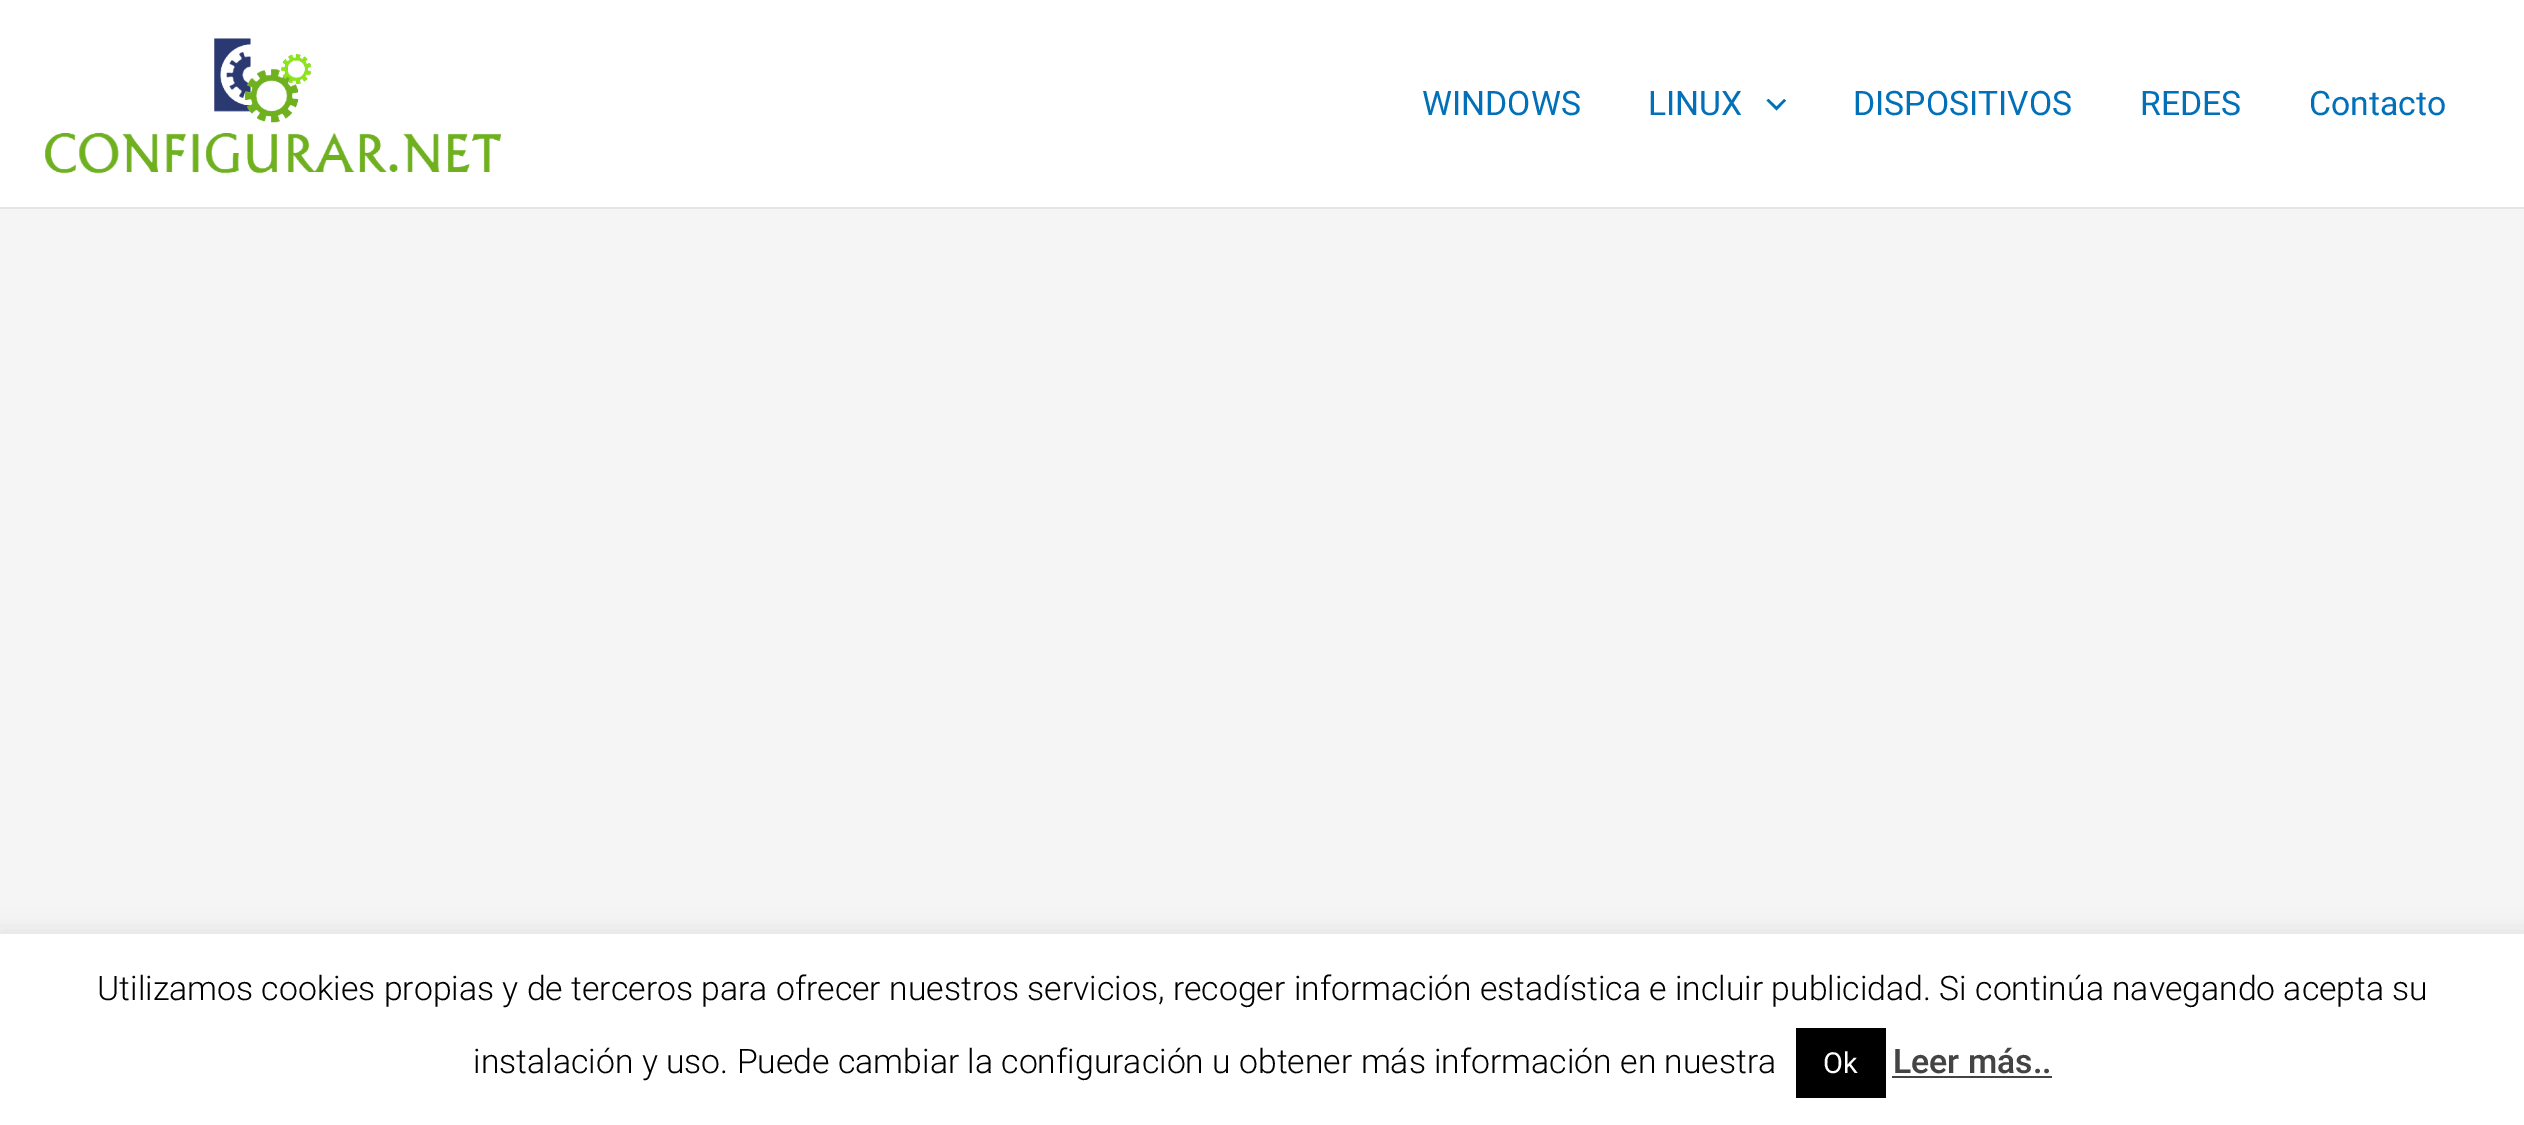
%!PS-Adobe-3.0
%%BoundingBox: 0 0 2524 1125
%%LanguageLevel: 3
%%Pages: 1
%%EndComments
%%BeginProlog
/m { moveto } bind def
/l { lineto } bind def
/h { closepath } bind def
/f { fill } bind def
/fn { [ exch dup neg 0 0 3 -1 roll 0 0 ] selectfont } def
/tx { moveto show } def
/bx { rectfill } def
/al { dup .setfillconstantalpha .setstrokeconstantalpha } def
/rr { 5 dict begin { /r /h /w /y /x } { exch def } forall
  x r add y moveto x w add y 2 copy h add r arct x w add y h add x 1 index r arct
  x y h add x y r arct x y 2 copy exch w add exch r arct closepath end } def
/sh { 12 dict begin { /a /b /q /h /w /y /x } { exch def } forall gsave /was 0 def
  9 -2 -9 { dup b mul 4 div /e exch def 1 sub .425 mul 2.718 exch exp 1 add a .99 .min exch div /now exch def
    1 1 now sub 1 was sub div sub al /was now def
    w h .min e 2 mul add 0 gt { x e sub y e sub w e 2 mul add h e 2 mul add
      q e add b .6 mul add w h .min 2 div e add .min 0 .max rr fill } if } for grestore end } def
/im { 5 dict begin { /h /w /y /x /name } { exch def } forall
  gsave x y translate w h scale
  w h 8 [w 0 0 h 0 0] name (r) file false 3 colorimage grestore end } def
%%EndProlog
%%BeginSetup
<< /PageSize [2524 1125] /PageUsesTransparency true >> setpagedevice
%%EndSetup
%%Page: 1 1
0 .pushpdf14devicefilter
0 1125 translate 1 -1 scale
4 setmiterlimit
0.961 setgray
0 0 2524 1125 bx
1 setgray
0 0 2524 207 bx
0.898 setgray
0 207 2524 2 bx
(image0.raw) 45 38 457 136 im
/Roboto-Regular 33.75 fn
0.004 0.439 0.725 setrgbcolor
(WINDOWS) 1422 115 tx
(LINUX) 1648 115 tx
1766.5 100.5 m 1776.5 110.5 l 1786 100.5 l 1784 99 l 1776.5 106.5 l 1768.5 99 l h f
(DISPOSITIVOS) 1853 115 tx
(REDES) 2140 115 tx
(Contacto) 2309 115 tx
0.675 0.671 0.671 setrgbcolor
0 932 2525 191 0 11 0.3 sh
1 setgray
0 934 2524 191 bx
/Roboto-Light 33.75 fn
0 setgray
(Utilizamos cookies propias y de terceros para ofrecer nuestros servicios, recoger información estadística e incluir publicidad. Si continúa navegando acepta su) 97 1000 tx
(instalación y uso. Puede cambiar la configuración u obtener más información en nuestra) 473 1073 tx
1796 1028 90 70 bx
/Roboto-Regular 29 fn
1 setgray
(Ok) 1823 1073 tx
/Roboto-Medium 33.75 fn
0.267 setgray
(Leer más..) 1893 1073 tx
1892 1076 160 2 bx
.poppdf14devicefilter showpage
%%EOF
